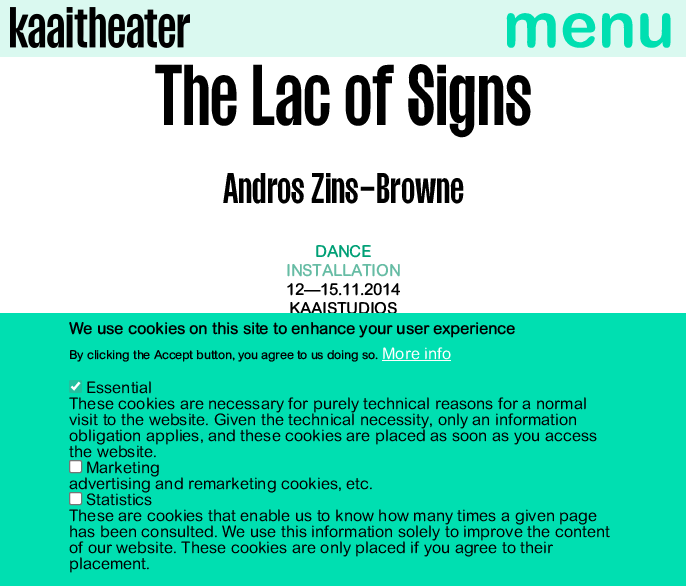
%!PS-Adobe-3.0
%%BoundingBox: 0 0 686 586
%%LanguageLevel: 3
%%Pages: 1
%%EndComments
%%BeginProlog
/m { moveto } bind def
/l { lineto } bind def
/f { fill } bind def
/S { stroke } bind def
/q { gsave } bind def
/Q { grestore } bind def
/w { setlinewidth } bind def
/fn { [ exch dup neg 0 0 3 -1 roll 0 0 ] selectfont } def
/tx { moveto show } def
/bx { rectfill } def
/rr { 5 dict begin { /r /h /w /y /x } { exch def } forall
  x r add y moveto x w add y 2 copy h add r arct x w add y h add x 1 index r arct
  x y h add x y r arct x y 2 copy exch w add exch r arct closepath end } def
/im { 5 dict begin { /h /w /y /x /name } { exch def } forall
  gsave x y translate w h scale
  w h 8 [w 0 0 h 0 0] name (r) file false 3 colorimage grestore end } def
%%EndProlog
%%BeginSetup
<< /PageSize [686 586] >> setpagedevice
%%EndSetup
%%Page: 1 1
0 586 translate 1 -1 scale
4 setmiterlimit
1 setgray
0 0 686 586 bx
0.855 0.976 0.941 setrgbcolor
0 0 686 57 bx
(image0.raw) 10 7 180 41 im
/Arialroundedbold-Bold 64 fn
0 0.875 0.694 setrgbcolor
(menu) 503 47 tx
/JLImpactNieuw-Regular 80 fn
0 setgray
(The Lac of Signs) 155 125 tx
/JLImpactNieuw-Regular 40 fn
(Andros Zins-Browne) 223 203 tx
/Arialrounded-Bold 16 fn
0 0.627 0.463 setrgbcolor
(DANCE) 315 257 tx
0.4 0.737 0.643 setrgbcolor
(INSTALLATION) 286 276 tx
0 setgray
(12—15.11.2014) 286 295 tx
(KAAISTUDIOS) 289 314 tx
0 0.875 0.694 setrgbcolor
0 313 686 273 bx
0 setgray
(We use cookies on this site to enhance your user experience) 69 334 tx
/Arialrounded-Bold 12 fn
(By clicking the Accept button, you agree to us doing so.) 69 359 tx
/Arialrounded-Regular 16 fn
1 setgray
(More info) 382 359 tx
382 360 69 1 bx
0.137 0.753 0.624 setrgbcolor
69 380 13 13 2 rr f
1 setgray
2.1 w
71.5 386.5 m 74 389 l 79.5 382.5 l S
0 setgray
(Essential) 86 393 tx
(These cookies are necessary for purely technical reasons for a normal) 69 409 tx
(visit to the website. Given the technical necessity, only an information) 69 425 tx
(obligation applies, and these cookies are placed as soon as you access) 69 441 tx
(the website.) 69 457 tx
1 setgray
69.5 460.5 12 12 1.5 rr q f Q
0.463 setgray
1 w
S
0 setgray
(Marketing) 86 473 tx
(advertising and remarketing cookies, etc.) 69 489 tx
1 setgray
69.5 492.5 12 12 1.5 rr q f Q
0.463 setgray
S
0 setgray
(Statistics) 86 505 tx
(These are cookies that enable us to know how many times a given page) 69 521 tx
(has been consulted. We use this information solely to improve the content) 69 537 tx
(of our website. These cookies are only placed if you agree to their) 69 553 tx
(placement.) 69 569 tx
showpage
%%EOF
